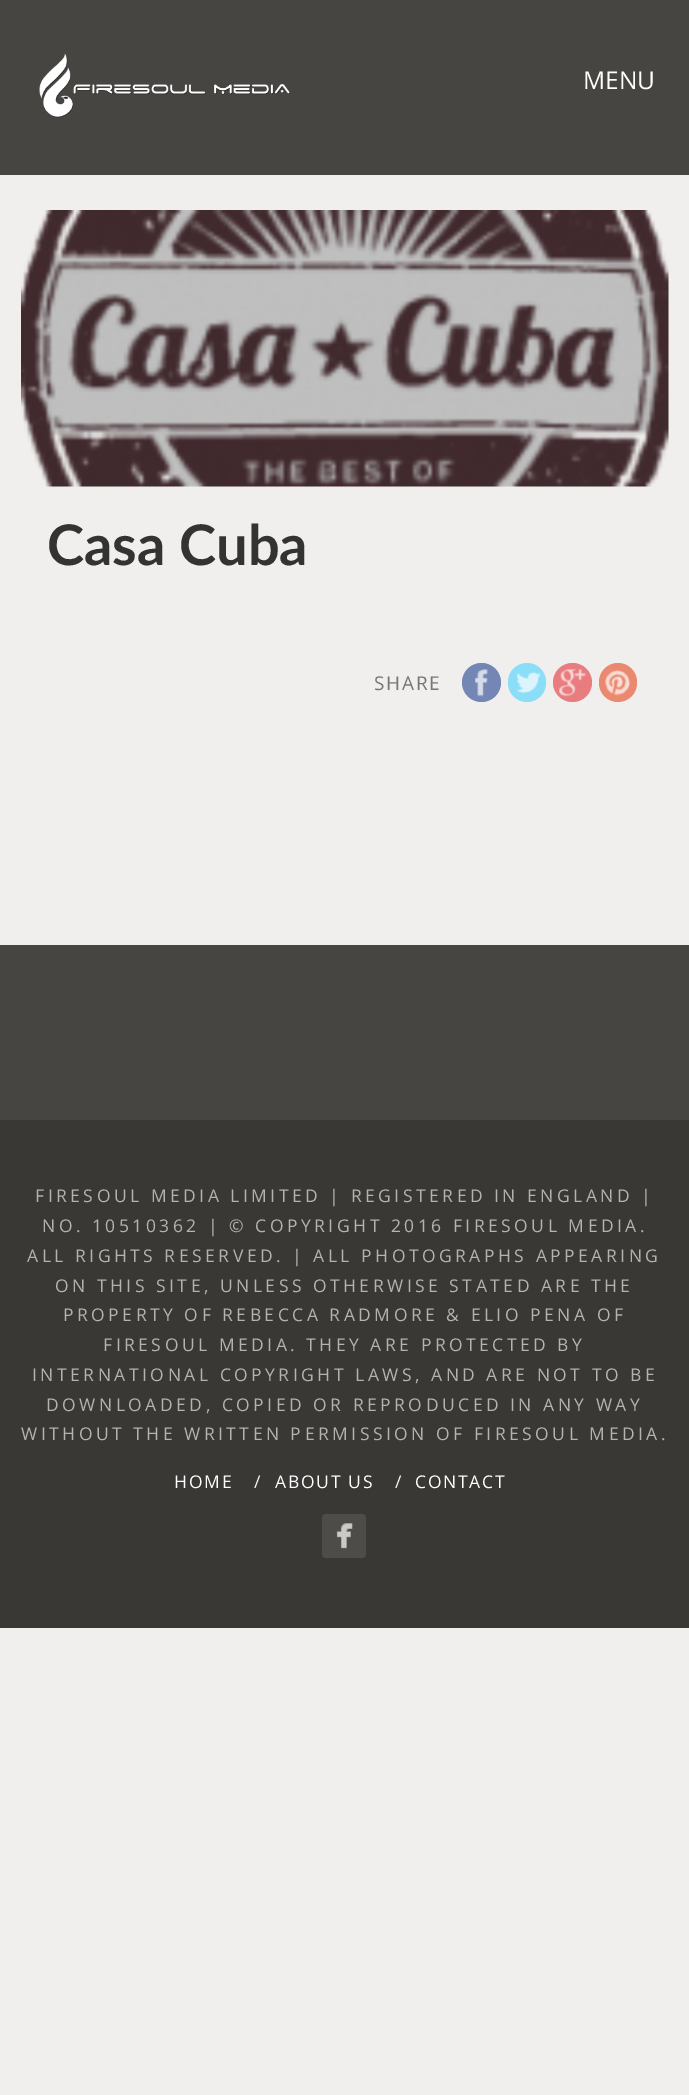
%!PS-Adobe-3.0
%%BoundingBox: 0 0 689 2095
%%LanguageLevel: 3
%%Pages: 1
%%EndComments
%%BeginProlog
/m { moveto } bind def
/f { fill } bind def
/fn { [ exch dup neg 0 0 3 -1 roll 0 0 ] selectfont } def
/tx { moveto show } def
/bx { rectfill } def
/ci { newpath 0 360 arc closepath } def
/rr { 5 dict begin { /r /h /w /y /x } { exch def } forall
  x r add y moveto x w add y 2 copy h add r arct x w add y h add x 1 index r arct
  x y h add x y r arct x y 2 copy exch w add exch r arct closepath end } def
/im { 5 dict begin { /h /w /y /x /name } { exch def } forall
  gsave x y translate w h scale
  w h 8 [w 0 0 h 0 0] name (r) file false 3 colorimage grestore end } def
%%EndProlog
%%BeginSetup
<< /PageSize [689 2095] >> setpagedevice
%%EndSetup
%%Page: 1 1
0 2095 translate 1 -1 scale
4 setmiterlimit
0.941 0.937 0.929 setrgbcolor
0 0 689 2095 bx
0.278 0.271 0.259 setrgbcolor
0 0 689 175 bx
(image0.raw) 39 53 251 65 im
/OpenSans-Regular 24.5 fn
1 setgray
(MENU) 583 89 tx
(image1.raw) 21 210 648 277 im
/Lato-Bold 56 fn
0.2 0.2 0.196 setrgbcolor
(Casa Cuba) 47 565 tx
/OpenSans-Regular 19 fn
0.467 setgray
374 690 m 1.75 0 (SHARE) ashow
0.451 0.525 0.706 setrgbcolor
481.5 682.5 19.5 ci f
(image2.raw) 475 669 13 28 im
0.545 0.871 0.973 setrgbcolor
508 663 38 39 19 rr f
(image3.raw) 516 672 25 22 im
0.91 0.486 0.494 setrgbcolor
572.5 682.5 19.5 ci f
(image4.raw) 559 669 27 28 im
0.918 0.537 0.439 setrgbcolor
599 663 38 39 19 rr f
(image5.raw) 605 670 26 26 im
0.278 0.271 0.259 setrgbcolor
0 945 689 175 bx
0.227 0.22 0.208 setrgbcolor
0 1120 689 508 bx
/OpenSans-Regular 17.5 fn
0.702 0.702 0.694 setrgbcolor
35 1202 m 3.5 0 (FIRESOUL MEDIA LIMITED | REGISTERED IN ENGLAND |) ashow
42 1232 m 3.5 0 (NO. 10510362 | © COPYRIGHT 2016 FIRESOUL MEDIA.) ashow
27 1262 m 3.5 0 (ALL RIGHTS RESERVED. | ALL PHOTOGRAPHS APPEARING) ashow
55 1292 m 3.5 0 (ON THIS SITE, UNLESS OTHERWISE STATED ARE THE) ashow
63 1321 m 3.5 0 (PROPERTY OF REBECCA RADMORE & ELIO PENA OF) ashow
103 1351 m 3.5 0 (FIRESOUL MEDIA. THEY ARE PROTECTED BY) ashow
32 1381 m 3.5 0 (INTERNATIONAL COPYRIGHT LAWS, AND ARE NOT TO BE) ashow
46 1411 m 3.5 0 (DOWNLOADED, COPIED OR REPRODUCED IN ANY WAY) ashow
21 1440 m 3.5 0 (WITHOUT THE WRITTEN PERMISSION OF FIRESOUL MEDIA.) ashow
1 setgray
174 1488 m 1.75 0 (HOME) ashow
0.969 setgray
254 1488 m 1.75 0 (/) ashow
1 setgray
275 1488 m 1.75 0 (ABOUT US) ashow
0.969 setgray
395 1488 m 1.75 0 (/) ashow
1 setgray
415 1488 m 1.75 0 (CONTACT) ashow
0.306 0.298 0.286 setrgbcolor
322 1514 44 44 4 rr f
(image6.raw) 336 1523 17 26 im
showpage
%%EOF
